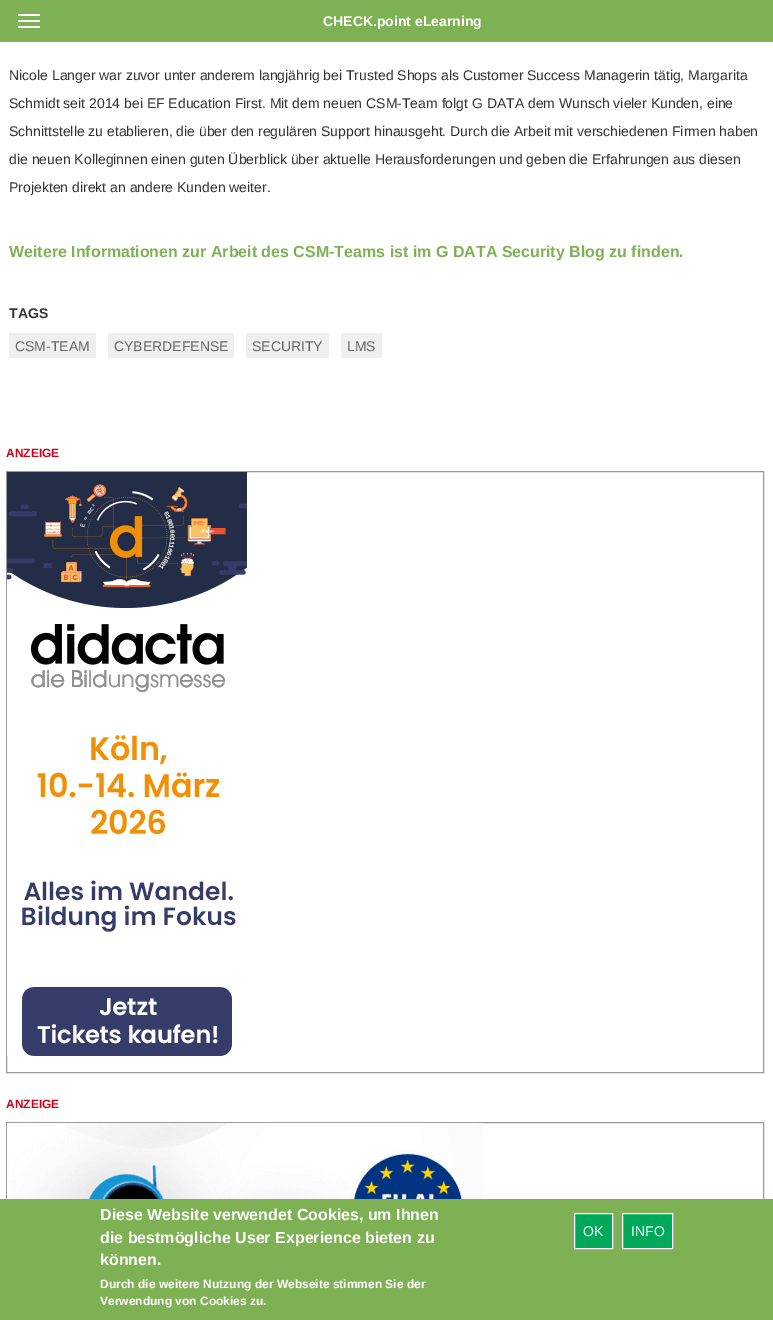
%!PS-Adobe-3.0
%%BoundingBox: 0 0 773 1320
%%LanguageLevel: 3
%%Pages: 1
%%EndComments
%%BeginProlog
/m { moveto } bind def
/l { lineto } bind def
/h { closepath } bind def
/f { fill } bind def
/S { stroke } bind def
/q { gsave } bind def
/Q { grestore } bind def
/fn { [ exch dup neg 0 0 3 -1 roll 0 0 ] selectfont } def
/tx { moveto show } def
/bx { rectfill } def
/rr { 5 dict begin { /r /h /w /y /x } { exch def } forall
  x r add y moveto x w add y 2 copy h add r arct x w add y h add x 1 index r arct
  x y h add x y r arct x y 2 copy exch w add exch r arct closepath end } def
/im { 5 dict begin { /h /w /y /x /name } { exch def } forall
  gsave x y translate w h scale
  w h 8 [w 0 0 h 0 0] name (r) file false 3 colorimage grestore end } def
%%EndProlog
%%BeginSetup
<< /PageSize [773 1320] >> setpagedevice
%%EndSetup
%%Page: 1 1
0 1320 translate 1 -1 scale
4 setmiterlimit
1 setgray
0 0 773 1320 bx
0.49 0.694 0.325 setrgbcolor
0 0 773 42 bx
1 setgray
18 14 22 2 1 rr f
18 20 22 2 1 rr f
18 26 22 2 1 rr f
/LiberationSans-Bold 14 fn
(CHECK.point eLearning) 323 26 tx
/LiberationSans-Regular 14 fn
0.2 setgray
(Nicole Langer war zuvor unter anderem langjährig bei Trusted Shops als Customer Success Managerin tätig, Margarita) 9 80 tx
(Schmidt seit 2014 bei EF Education First. Mit dem neuen CSM-Team folgt G DATA dem Wunsch vieler Kunden, eine) 9 108 tx
(Schnittstelle zu etablieren, die über den regulären Support hinausgeht. Durch die Arbeit mit verschiedenen Firmen haben) 9 136 tx
(die neuen Kolleginnen einen guten Überblick über aktuelle Herausforderungen und geben die Erfahrungen aus diesen) 9 164 tx
(Projekten direkt an andere Kunden weiter.) 9 192 tx
/LiberationSans-Bold 16 fn
0.49 0.694 0.325 setrgbcolor
(Weitere Informationen zur Arbeit des CSM-Teams ist im G DATA Security Blog zu finden.) 9 257 tx
/LiberationSans-Bold 14 fn
0.2 setgray
(TAGS) 9 318 tx
0.937 setgray
9 333 87 25 bx
/LiberationSans-Regular 14 fn
0.4 setgray
(CSM-TEAM) 15 351 tx
0.937 setgray
108 333 126 25 bx
0.4 setgray
(CYBERDEFENSE) 114 351 tx
0.937 setgray
246 333 83 25 bx
0.4 setgray
(SECURITY) 252 351 tx
0.937 setgray
341 333 41 25 bx
0.4 setgray
(LMS) 347 351 tx
/LiberationSans-Bold 12 fn
0.816 0.008 0.106 setrgbcolor
(ANZEIGE) 6 457 tx
0.6 setgray
6.5 471.5 757 601 rectstroke
(image0.raw) 7 472 240 584 im
0.816 0.008 0.106 setrgbcolor
(ANZEIGE) 6 1108 tx
0.6 setgray
6.5 1122.5 757 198 rectstroke
(image1.raw) 7 1123 476 76 im
0.49 0.694 0.325 setrgbcolor
0 1199 773 121 bx
/LiberationSans-Bold 16 fn
1 setgray
(Diese Website verwendet Cookies, um Ihnen) 100 1220 tx
(die bestmögliche User Experience bieten zu) 100 1243 tx
(können.) 100 1265 tx
/LiberationSans-Bold 12 fn
(Durch die weitere Nutzung der Webseite stimmen Sie der) 100 1288 tx
(Verwendung von Cookies zu.) 100 1305 tx
0 0.659 0.361 setrgbcolor
574.5 1213.5 m 612.5 1213.5 l 612.5 1248.5 l 574.5 1248.5 l h q f Q
1 setgray
S
/LiberationSans-Regular 14 fn
(OK) 583 1236 tx
0 0.659 0.361 setrgbcolor
622.5 1213.5 m 672.5 1213.5 l 672.5 1248.5 l 622.5 1248.5 l h q f Q
1 setgray
S
(INFO) 631 1236 tx
showpage
%%EOF
